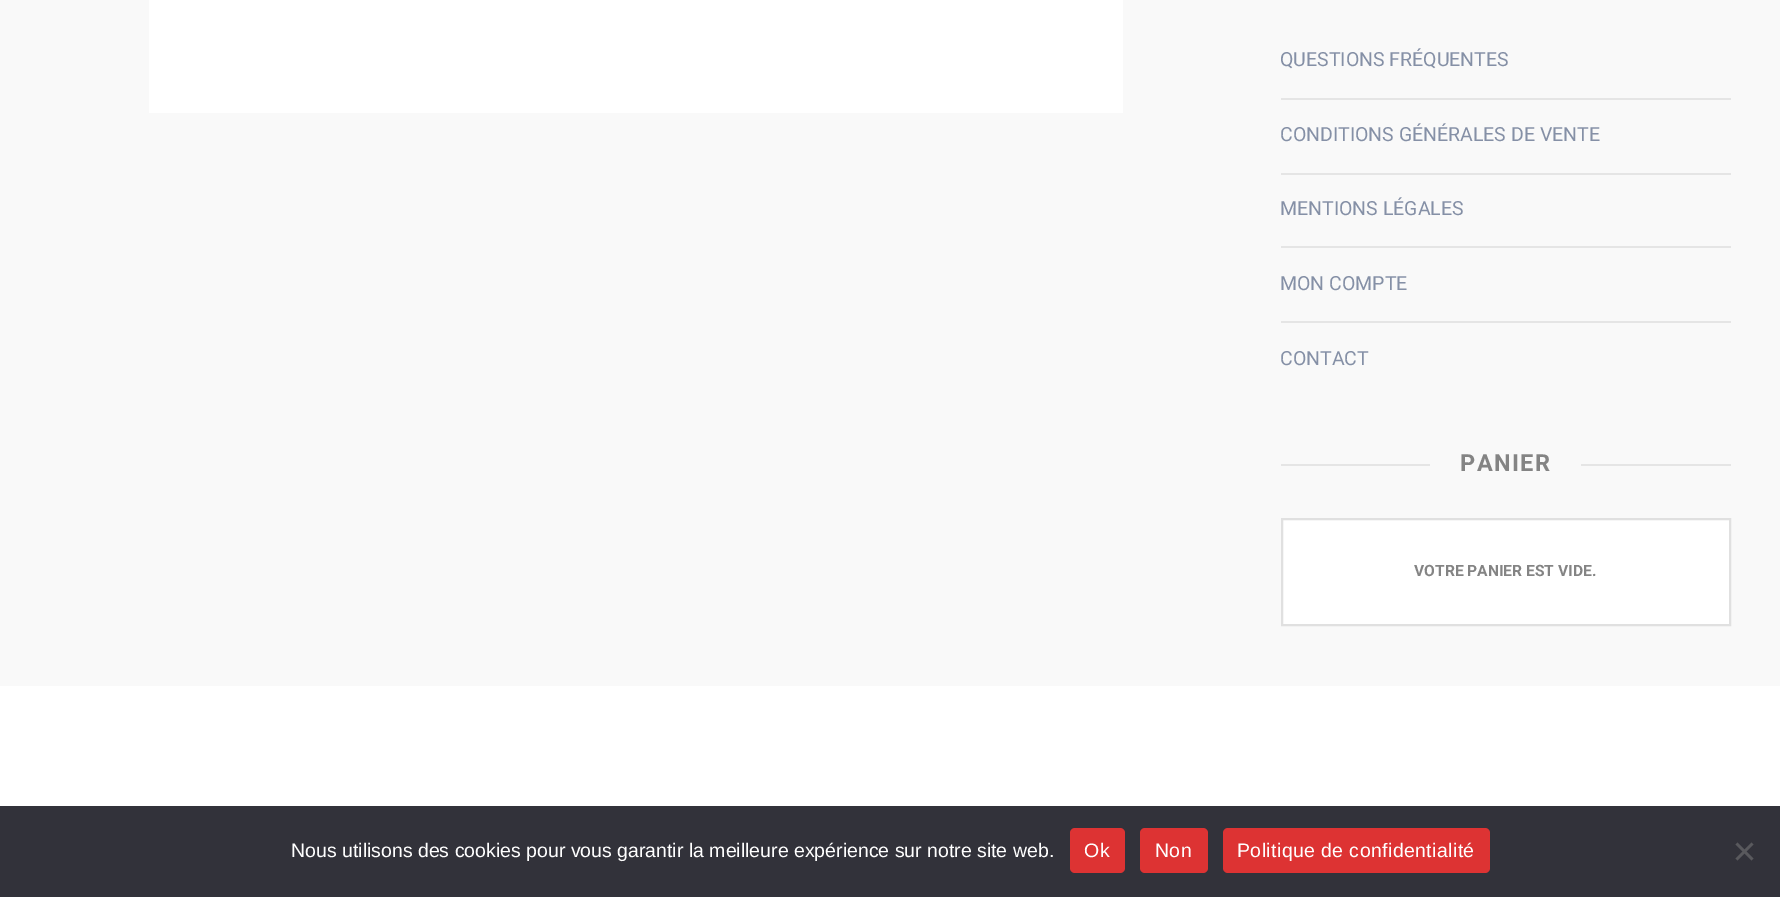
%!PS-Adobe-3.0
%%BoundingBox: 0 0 1780 897
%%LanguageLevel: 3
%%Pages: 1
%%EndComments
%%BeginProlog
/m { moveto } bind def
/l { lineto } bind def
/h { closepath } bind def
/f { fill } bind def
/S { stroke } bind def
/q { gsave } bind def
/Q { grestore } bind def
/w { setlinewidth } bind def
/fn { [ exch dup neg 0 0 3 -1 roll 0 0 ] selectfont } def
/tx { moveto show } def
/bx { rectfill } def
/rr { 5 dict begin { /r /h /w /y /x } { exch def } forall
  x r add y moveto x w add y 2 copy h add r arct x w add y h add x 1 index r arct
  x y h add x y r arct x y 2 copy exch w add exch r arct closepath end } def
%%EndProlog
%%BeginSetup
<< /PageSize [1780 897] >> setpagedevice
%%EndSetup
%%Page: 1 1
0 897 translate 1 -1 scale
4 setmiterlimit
1 setgray
0 0 1780 897 bx
0.976 setgray
0 0 1780 686 bx
1 setgray
149 0 974 113 bx
/Roboto-Regular 19.5 fn
0.522 0.565 0.651 setrgbcolor
(QUESTIONS FRÉQUENTES) 1280 66 tx
0.898 setgray
1281 98 450 2 bx
0.522 0.565 0.651 setrgbcolor
(CONDITIONS GÉNÉRALES DE VENTE) 1280 141 tx
0.898 setgray
1281 173 450 2 bx
0.522 0.565 0.651 setrgbcolor
(MENTIONS LÉGALES) 1280 215 tx
0.898 setgray
1281 246 450 2 bx
0.522 0.565 0.651 setrgbcolor
(MON COMPTE) 1280 290 tx
0.898 setgray
1281 321 450 2 bx
0.522 0.565 0.651 setrgbcolor
(CONTACT) 1280 365 tx
0.898 setgray
1281 464 450 2 bx
0.976 setgray
1430 464 151 2 bx
/Roboto-Bold 23.5 fn
0.518 setgray
1460 471 m 1.5 0 (PANIER) ashow
1 setgray
1282 519 m 1730 519 l 1730 625 l 1282 625 l h q f Q
0.878 setgray
2 w
S
/Roboto-Bold 15.6 fn
0.518 setgray
(VOTRE PANIER EST VIDE.) 1414 576 tx
0.196 0.196 0.227 setrgbcolor
0 806 1780 91 bx
/LiberationSans-Regular 19.5 fn
1 setgray
(Nous utilisons des cookies pour vous garantir la meilleure expérience sur notre site web.) 291 857 tx
0.867 0.2 0.2 setrgbcolor
1070 828 55 45 5 rr f
1 setgray
1084 857 m 0.4 0 (Ok) ashow
0.867 0.2 0.2 setrgbcolor
1140 828 68 45 5 rr f
1 setgray
1155 857 m 0.4 0 (Non) ashow
0.867 0.2 0.2 setrgbcolor
1223 828 267 45 5 rr f
1 setgray
1237 857 m 0.4 0 (Politique de confidentialité) ashow
0.349 0.349 0.365 setrgbcolor
1751.5 842.5 m 1753.5 844.5 l 1737.5 860.5 l 1735.5 858.5 l h f
1735.5 844.5 m 1737.5 842.5 l 1753.5 858.5 l 1751.5 860.5 l h f
showpage
%%EOF
